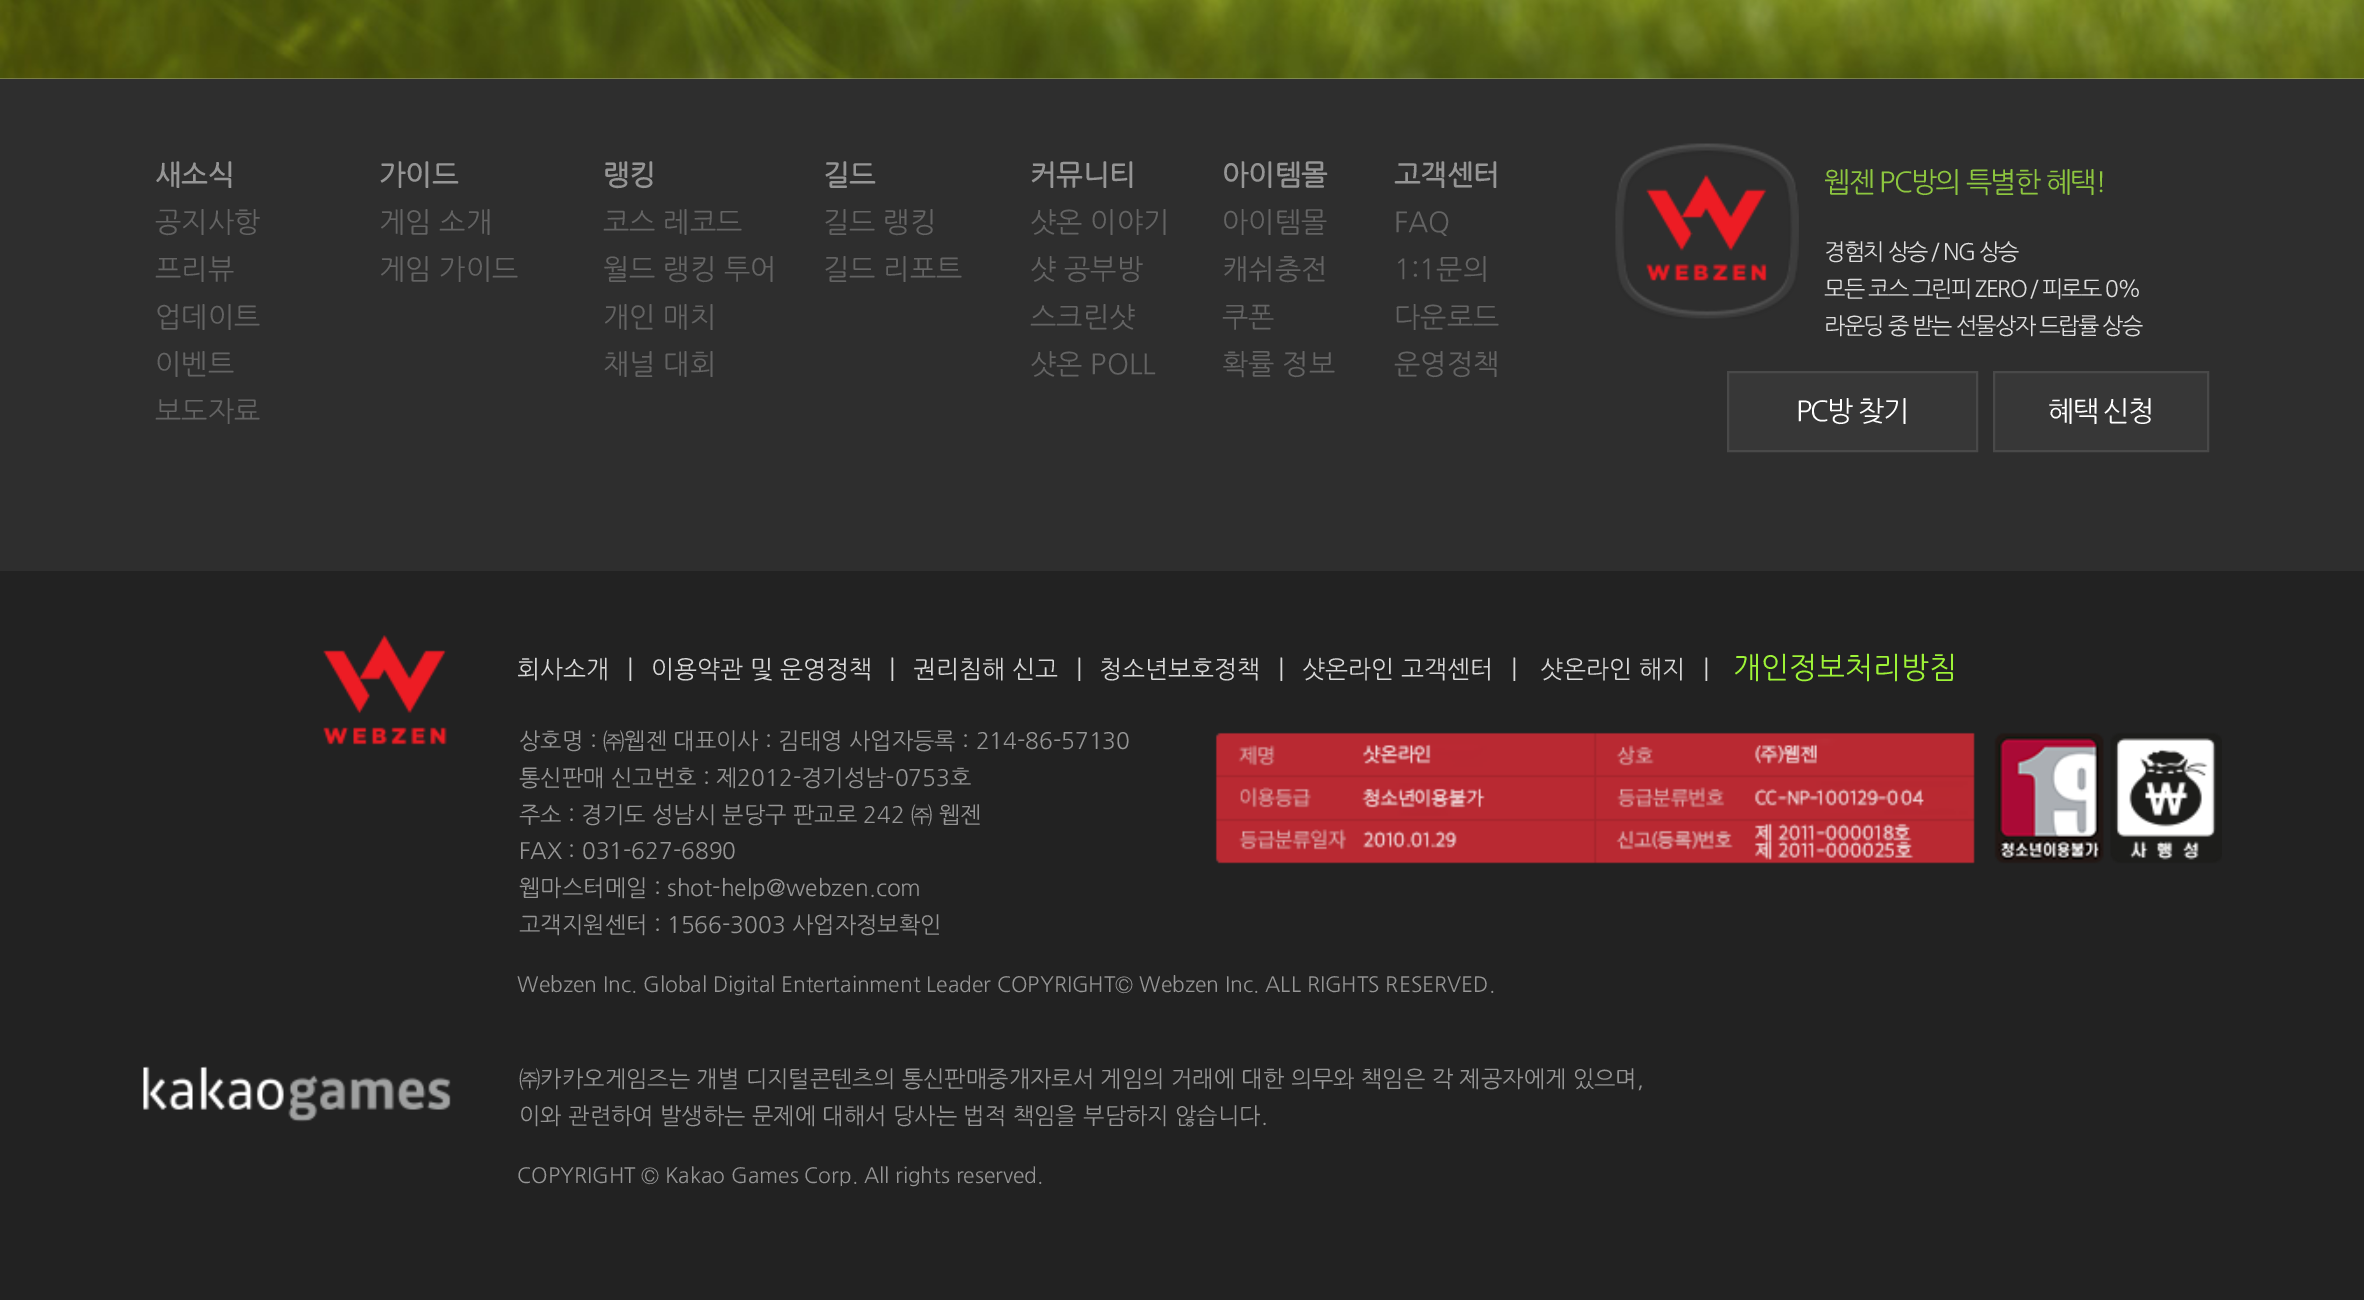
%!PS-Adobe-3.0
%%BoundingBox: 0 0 2364 1300
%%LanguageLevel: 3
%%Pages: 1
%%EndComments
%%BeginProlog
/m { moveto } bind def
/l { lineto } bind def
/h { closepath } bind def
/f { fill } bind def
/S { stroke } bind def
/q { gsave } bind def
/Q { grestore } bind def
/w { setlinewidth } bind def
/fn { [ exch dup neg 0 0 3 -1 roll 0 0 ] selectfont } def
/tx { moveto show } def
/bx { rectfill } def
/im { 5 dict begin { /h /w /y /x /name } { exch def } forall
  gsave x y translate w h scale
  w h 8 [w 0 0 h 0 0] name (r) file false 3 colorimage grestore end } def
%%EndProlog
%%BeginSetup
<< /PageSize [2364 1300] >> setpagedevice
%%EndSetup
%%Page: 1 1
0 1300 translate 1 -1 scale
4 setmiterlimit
1 setgray
0 0 2364 1300 bx
(image0.raw) 0 0 2364 79 im
0.18 setgray
0 79 2364 492 bx
/NanumGothic-Bold 28 fn
0.584 setgray
(새소식) 155 184 tx
/NanumGothic-Regular 28 fn
0.388 setgray
(공지사항) 155 231 tx
(프리뷰) 155 278 tx
(업데이트) 155 326 tx
(이벤트) 155 373 tx
(보도자료) 155 420 tx
/NanumGothic-Bold 28 fn
0.584 setgray
(가이드) 379 184 tx
/NanumGothic-Regular 28 fn
0.388 setgray
(게임 소개) 379 231 tx
(게임 가이드) 379 278 tx
/NanumGothic-Bold 28 fn
0.584 setgray
(랭킹) 603 184 tx
/NanumGothic-Regular 28 fn
0.388 setgray
(코스 레코드) 603 231 tx
(월드 랭킹 투어) 603 278 tx
(개인 매치) 603 326 tx
(채널 대회) 603 373 tx
/NanumGothic-Bold 28 fn
0.584 setgray
(길드) 823 184 tx
/NanumGothic-Regular 28 fn
0.388 setgray
(길드 랭킹) 823 231 tx
(길드 리포트) 823 278 tx
/NanumGothic-Bold 28 fn
0.584 setgray
(커뮤니티) 1030 184 tx
/NanumGothic-Regular 28 fn
0.388 setgray
(샷온 이야기) 1030 231 tx
(샷 공부방) 1030 278 tx
(스크린샷) 1030 326 tx
(샷온 POLL) 1030 373 tx
/NanumGothic-Bold 28 fn
0.584 setgray
(아이템몰) 1222 184 tx
/NanumGothic-Regular 28 fn
0.388 setgray
(아이템몰) 1222 231 tx
(캐쉬충전) 1222 278 tx
(쿠폰) 1222 326 tx
(확률 정보) 1222 373 tx
/NanumGothic-Bold 28 fn
0.584 setgray
(고객센터) 1394 184 tx
/NanumGothic-Regular 28 fn
0.388 setgray
(FAQ) 1394 231 tx
(1:1문의) 1394 278 tx
(다운로드) 1394 326 tx
(운영정책) 1394 373 tx
(image1.raw) 1615 143 184 176 im
0.553 0.776 0.247 setrgbcolor
1824 191 m -1.75 0 (웹젠 PC방의 특별한 혜택!) ashow
/NanumGothic-Regular 22.75 fn
0.867 setgray
1824 259 m -1.75 0 (경험치 상승 / NG 상승) ashow
1824 296 m -1.75 0 (모든 코스 그린피 ZERO / 피로도 0%) ashow
1824 333 m -1.75 0 (라운딩 중 받는 선물상자 드랍률 상승) ashow
0.216 setgray
1728 372 m 1977 372 l 1977 451 l 1728 451 l h q f Q
0.286 setgray
2 w
S
/NanumGothic-Regular 28 fn
1 setgray
1796 420 m -1.75 0 (PC방 찾기) ashow
0.216 setgray
1994 372 m 2208 372 l 2208 451 l 1994 451 l h q f Q
0.286 setgray
S
1 setgray
2048 420 m -1.75 0 (혜택 신청) ashow
0.133 setgray
0 571 2364 729 bx
(image2.raw) 323 635 124 110 im
(image3.raw) 143 1066 308 56 im
/NanumGothic-Regular 24.5 fn
0.843 setgray
(회사소개) 517 677 tx
/NanumGothic-Regular 26 fn
(|) 627 677 tx
/NanumGothic-Regular 24.5 fn
(이용약관 및 운영정책) 651 677 tx
/NanumGothic-Regular 26 fn
(|) 889 677 tx
/NanumGothic-Regular 24.5 fn
(권리침해 신고) 913 677 tx
/NanumGothic-Regular 26 fn
(|) 1076 677 tx
/NanumGothic-Regular 24.5 fn
(청소년보호정책) 1099 677 tx
/NanumGothic-Regular 26 fn
(|) 1278 677 tx
/NanumGothic-Regular 24.5 fn
(샷온라인 고객센터) 1302 677 tx
/NanumGothic-Regular 26 fn
(|) 1511 677 tx
/NanumGothic-Regular 24.5 fn
(샷온라인 해지) 1540 677 tx
/NanumGothic-Regular 26 fn
(|) 1703 677 tx
/NanumGothic-Regular 29.75 fn
0.62 0.957 0.216 setrgbcolor
(개인정보처리방침) 1733 677 tx
/NanumGothic-Regular 22.75 fn
0.584 setgray
(상호명 : ㈜웹젠 대표이사 : 김태영 사업자등록 : 214-86-57130) 519 748 tx
(통신판매 신고번호 : 제2012-경기성남-0753호) 519 785 tx
(주소 : 경기도 성남시 분당구 판교로 242 ㈜ 웹젠) 519 822 tx
(FAX : 031-627-6890) 519 858 tx
(웹마스터메일 : shot-help@webzen.com) 519 895 tx
(고객지원센터 : 1566-3003 사업자정보확인) 519 932 tx
/NanumGothic-Regular 21 fn
(Webzen Inc. Global Digital Entertainment Leader COPYRIGHT© Webzen Inc. ALL RIGHTS RESERVED.) 517 991 tx
/NanumGothic-Regular 22.75 fn
(㈜카카오게임즈는 개별 디지털콘텐츠의 통신판매중개자로서 게임의 거래에 대한 의무와 책임은 각 제공자에게 있으며,) 519 1086 tx
(이와 관련하여 발생하는 문제에 대해서 당사는 법적 책임을 부담하지 않습니다.) 519 1123 tx
/NanumGothic-Regular 21 fn
(COPYRIGHT © Kakao Games Corp. All rights reserved.) 517 1182 tx
(image4.raw) 1215 732 1007 132 im
showpage
%%EOF
